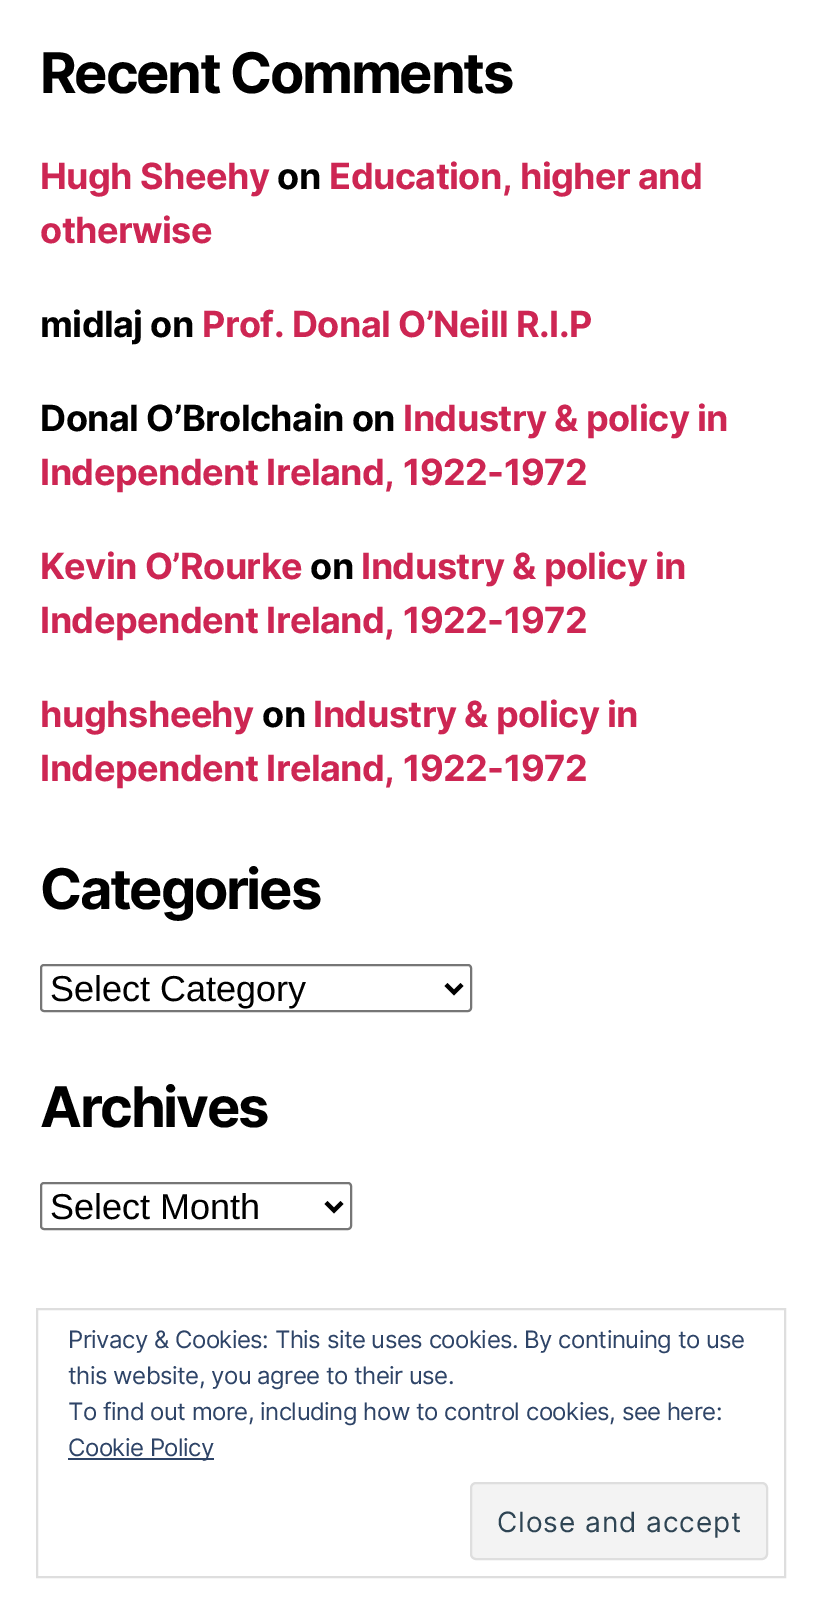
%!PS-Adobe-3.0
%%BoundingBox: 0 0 821 1613
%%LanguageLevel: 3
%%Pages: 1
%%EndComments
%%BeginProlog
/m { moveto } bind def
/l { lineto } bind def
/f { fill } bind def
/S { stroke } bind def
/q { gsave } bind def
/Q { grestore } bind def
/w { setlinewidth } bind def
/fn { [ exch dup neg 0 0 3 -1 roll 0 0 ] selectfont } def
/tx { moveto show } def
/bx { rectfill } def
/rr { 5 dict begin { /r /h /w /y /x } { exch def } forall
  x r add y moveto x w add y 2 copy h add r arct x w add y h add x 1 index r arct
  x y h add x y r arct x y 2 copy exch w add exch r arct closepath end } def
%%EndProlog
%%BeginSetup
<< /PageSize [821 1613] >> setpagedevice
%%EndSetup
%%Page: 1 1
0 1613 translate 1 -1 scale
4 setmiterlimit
1 setgray
0 0 821 1613 bx
/Inter-Bold 56 fn
0 setgray
40 93 m -2.3 0 (Recent Comments) ashow
/Inter-Bold 36 fn
0.804 0.149 0.325 setrgbcolor
40 189 m -0.55 0 (Hugh Sheehy) ashow
0 setgray
277 189 m -0.55 0 (on) ashow
0.804 0.149 0.325 setrgbcolor
329 189 m -0.55 0 (Education, higher and) ashow
40 243 m -0.55 0 (otherwise) ashow
0 setgray
40 337 m -0.55 0 (midlaj on) ashow
0.804 0.149 0.325 setrgbcolor
202 337 m -0.55 0 (Prof. Donal O’Neill R.I.P) ashow
0 setgray
40 431 m -0.55 0 (Donal O’Brolchain on) ashow
0.804 0.149 0.325 setrgbcolor
403 431 m -0.55 0 (Industry & policy in) ashow
40 485 m -0.55 0 (Independent Ireland, 1922-1972) ashow
40 579 m -0.55 0 (Kevin O’Rourke) ashow
0 setgray
310 579 m -0.55 0 (on) ashow
0.804 0.149 0.325 setrgbcolor
361 579 m -0.55 0 (Industry & policy in) ashow
40 633 m -0.55 0 (Independent Ireland, 1922-1972) ashow
40 727 m -0.55 0 (hughsheehy) ashow
0 setgray
262 727 m -0.55 0 (on) ashow
0.804 0.149 0.325 setrgbcolor
313 727 m -0.55 0 (Industry & policy in) ashow
40 781 m -0.55 0 (Independent Ireland, 1922-1972) ashow
/Inter-Bold 56 fn
0 setgray
40 909 m -2.3 0 (Categories) ashow
0.463 setgray
2 w
41 965 430 46 3 rr S
0 setgray
4 w
446 984.5 m 454 992.5 l 462 984.5 l S
/LiberationSans-Regular 36 fn
(Select Category) 50 1001 tx
/Inter-Bold 56 fn
40 1127 m -2.3 0 (Archives) ashow
0.463 setgray
2 w
41 1183 310 46 3 rr S
0 setgray
4 w
326 1202.5 m 334 1210.5 l 342 1202.5 l S
/LiberationSans-Regular 36 fn
(Select Month) 50 1219 tx
0.871 setgray
2 w
37 1309 748 268 rectstroke
/Inter-Regular 24 fn
0.18 0.267 0.404 setrgbcolor
68 1348 m -0.55 0 (Privacy & Cookies: This site uses cookies. By continuing to use) ashow
68 1384 m -0.55 0 (this website, you agree to their use.) ashow
68 1420 m -0.55 0 (To find out more, including how to control cookies, see here:) ashow
68 1458 146 2 bx
68 1456 m -0.55 0 (Cookie Policy) ashow
0.953 setgray
471 1483 296 76 5 rr q f Q
0.871 setgray
S
/Inter-Regular 28 fn
0.18 0.267 0.325 setrgbcolor
497 1532 m 0.9 0 (Close and accept) ashow
showpage
%%EOF
